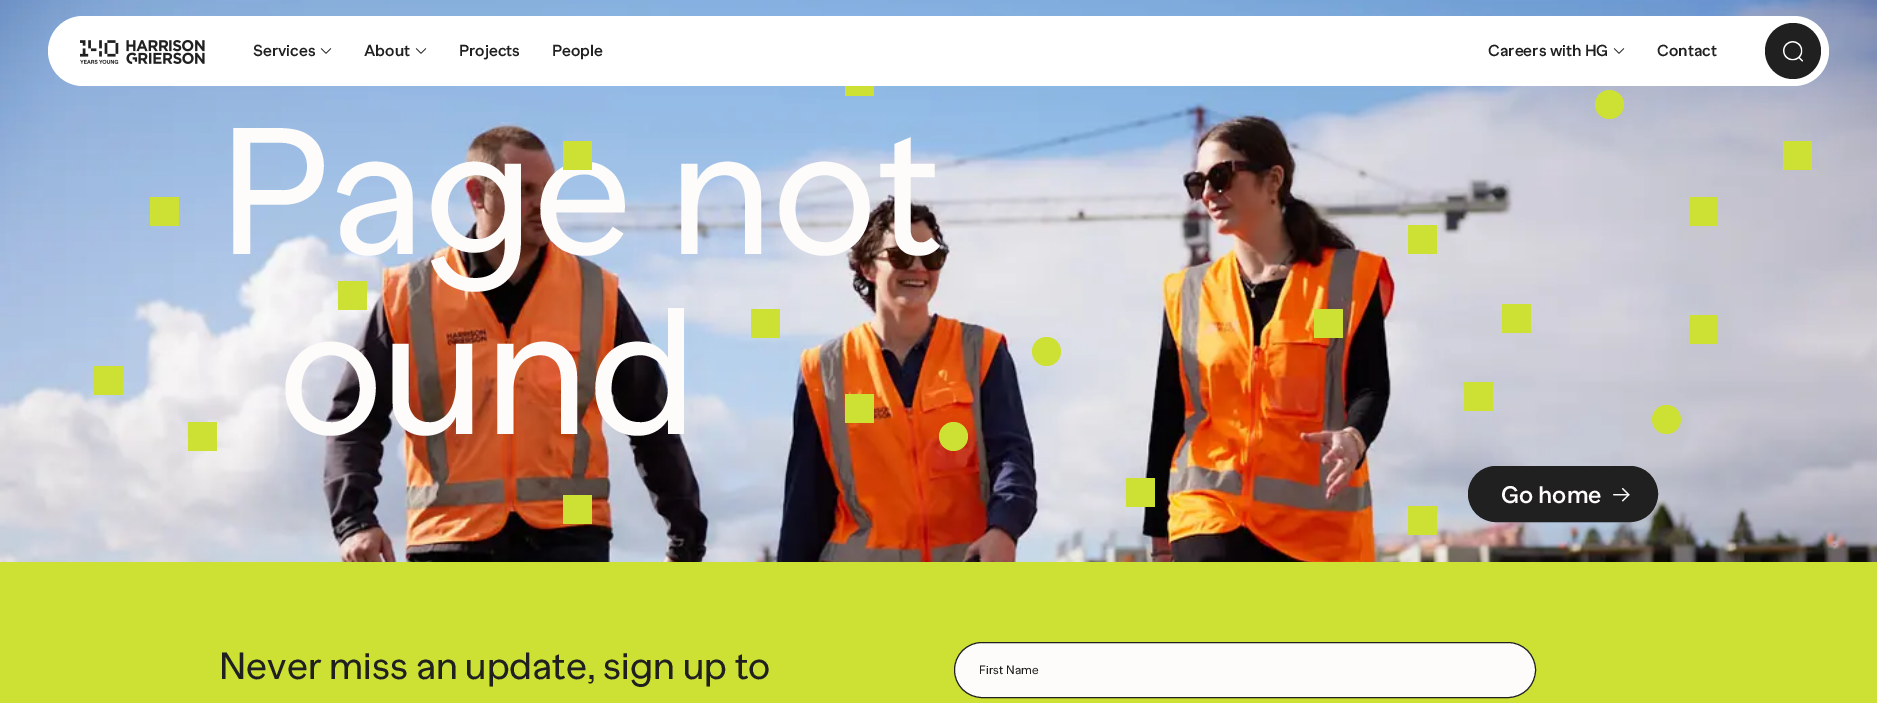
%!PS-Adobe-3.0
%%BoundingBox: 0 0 1877 703
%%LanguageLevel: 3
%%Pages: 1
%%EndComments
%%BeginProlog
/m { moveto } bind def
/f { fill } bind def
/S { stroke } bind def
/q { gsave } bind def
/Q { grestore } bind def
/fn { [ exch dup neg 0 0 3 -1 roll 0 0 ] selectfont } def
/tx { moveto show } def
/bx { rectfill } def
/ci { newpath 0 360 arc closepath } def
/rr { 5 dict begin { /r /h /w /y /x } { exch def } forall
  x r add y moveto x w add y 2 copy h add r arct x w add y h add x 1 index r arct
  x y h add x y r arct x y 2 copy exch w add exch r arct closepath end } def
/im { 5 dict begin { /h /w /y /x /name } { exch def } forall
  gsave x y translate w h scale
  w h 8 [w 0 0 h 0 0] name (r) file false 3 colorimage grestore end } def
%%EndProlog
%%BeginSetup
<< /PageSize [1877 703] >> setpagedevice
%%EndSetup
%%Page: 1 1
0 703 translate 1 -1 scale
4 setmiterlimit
0.8 0.882 0.204 setrgbcolor
0 0 1877 703 bx
(image3.raw) 0 0 1877 562 im
1 setgray
48 16 1781 70 35 rr f
(image0.raw) 80 40 125 24 im
/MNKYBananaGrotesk-SemiBold 16 fn
0.125 setgray
(Services) 253 56 tx
(image1.raw) 320 48 12 6 im
(About) 364 56 tx
(image1.raw) 415 48 12 6 im
(Projects) 459 56 tx
(People) 552 56 tx
(Careers with HG) 1488 56 tx
(image1.raw) 1613 48 12 6 im
(Contact) 1657 56 tx
1793 51 28 ci f
(image2.raw) 1783 41 20 21 im
0.8 0.882 0.204 setrgbcolor
845 86 29 10 bx
1609.5 104.5 14.5 ci f
/MNKYBananaGrotesk-Regular 180 fn
0.992 0.988 0.98 setrgbcolor
(Page not) 219 254 tx
0.8 0.882 0.204 setrgbcolor
563 141 29 29 bx
1783 141 29 29 bx
150 197 29 29 bx
1689 197 29 29 bx
1408 225 29 29 bx
0.992 0.988 0.98 setrgbcolor
(ound) 278 434 tx
0.8 0.882 0.204 setrgbcolor
338 281 29 29 bx
751 309 29 29 bx
1314 309 29 29 bx
1502 304 29 29 bx
1689 315 29 29 bx
1046.5 351.5 14.5 ci f
94 366 29 29 bx
188 422 29 29 bx
845 394 29 29 bx
953.5 436.5 14.5 ci f
1464 382 29 29 bx
1666.5 419.5 14.5 ci f
563 495 29 29 bx
1126 478 29 29 bx
1408 506 29 29 bx
0.125 setgray
1468.5 466.5 189 55 27.5 rr q f Q
S
/MNKYBananaGrotesk-SemiBold 24 fn
0.992 0.988 0.98 setrgbcolor
(Go home) 1501 503 tx
(image4.raw) 1613 488 17 14 im
/MNKYBananaGrotesk-Regular 38 fn
0.125 setgray
(Never miss an update, sign up to) 219 679 tx
0.992 0.988 0.98 setrgbcolor
954.5 642.5 581 55 27.5 rr q f Q
0.125 setgray
S
/MNKYBananaGrotesk-Regular 12 fn
979 674 m 0.1 0 (First Name) ashow
showpage
%%EOF
